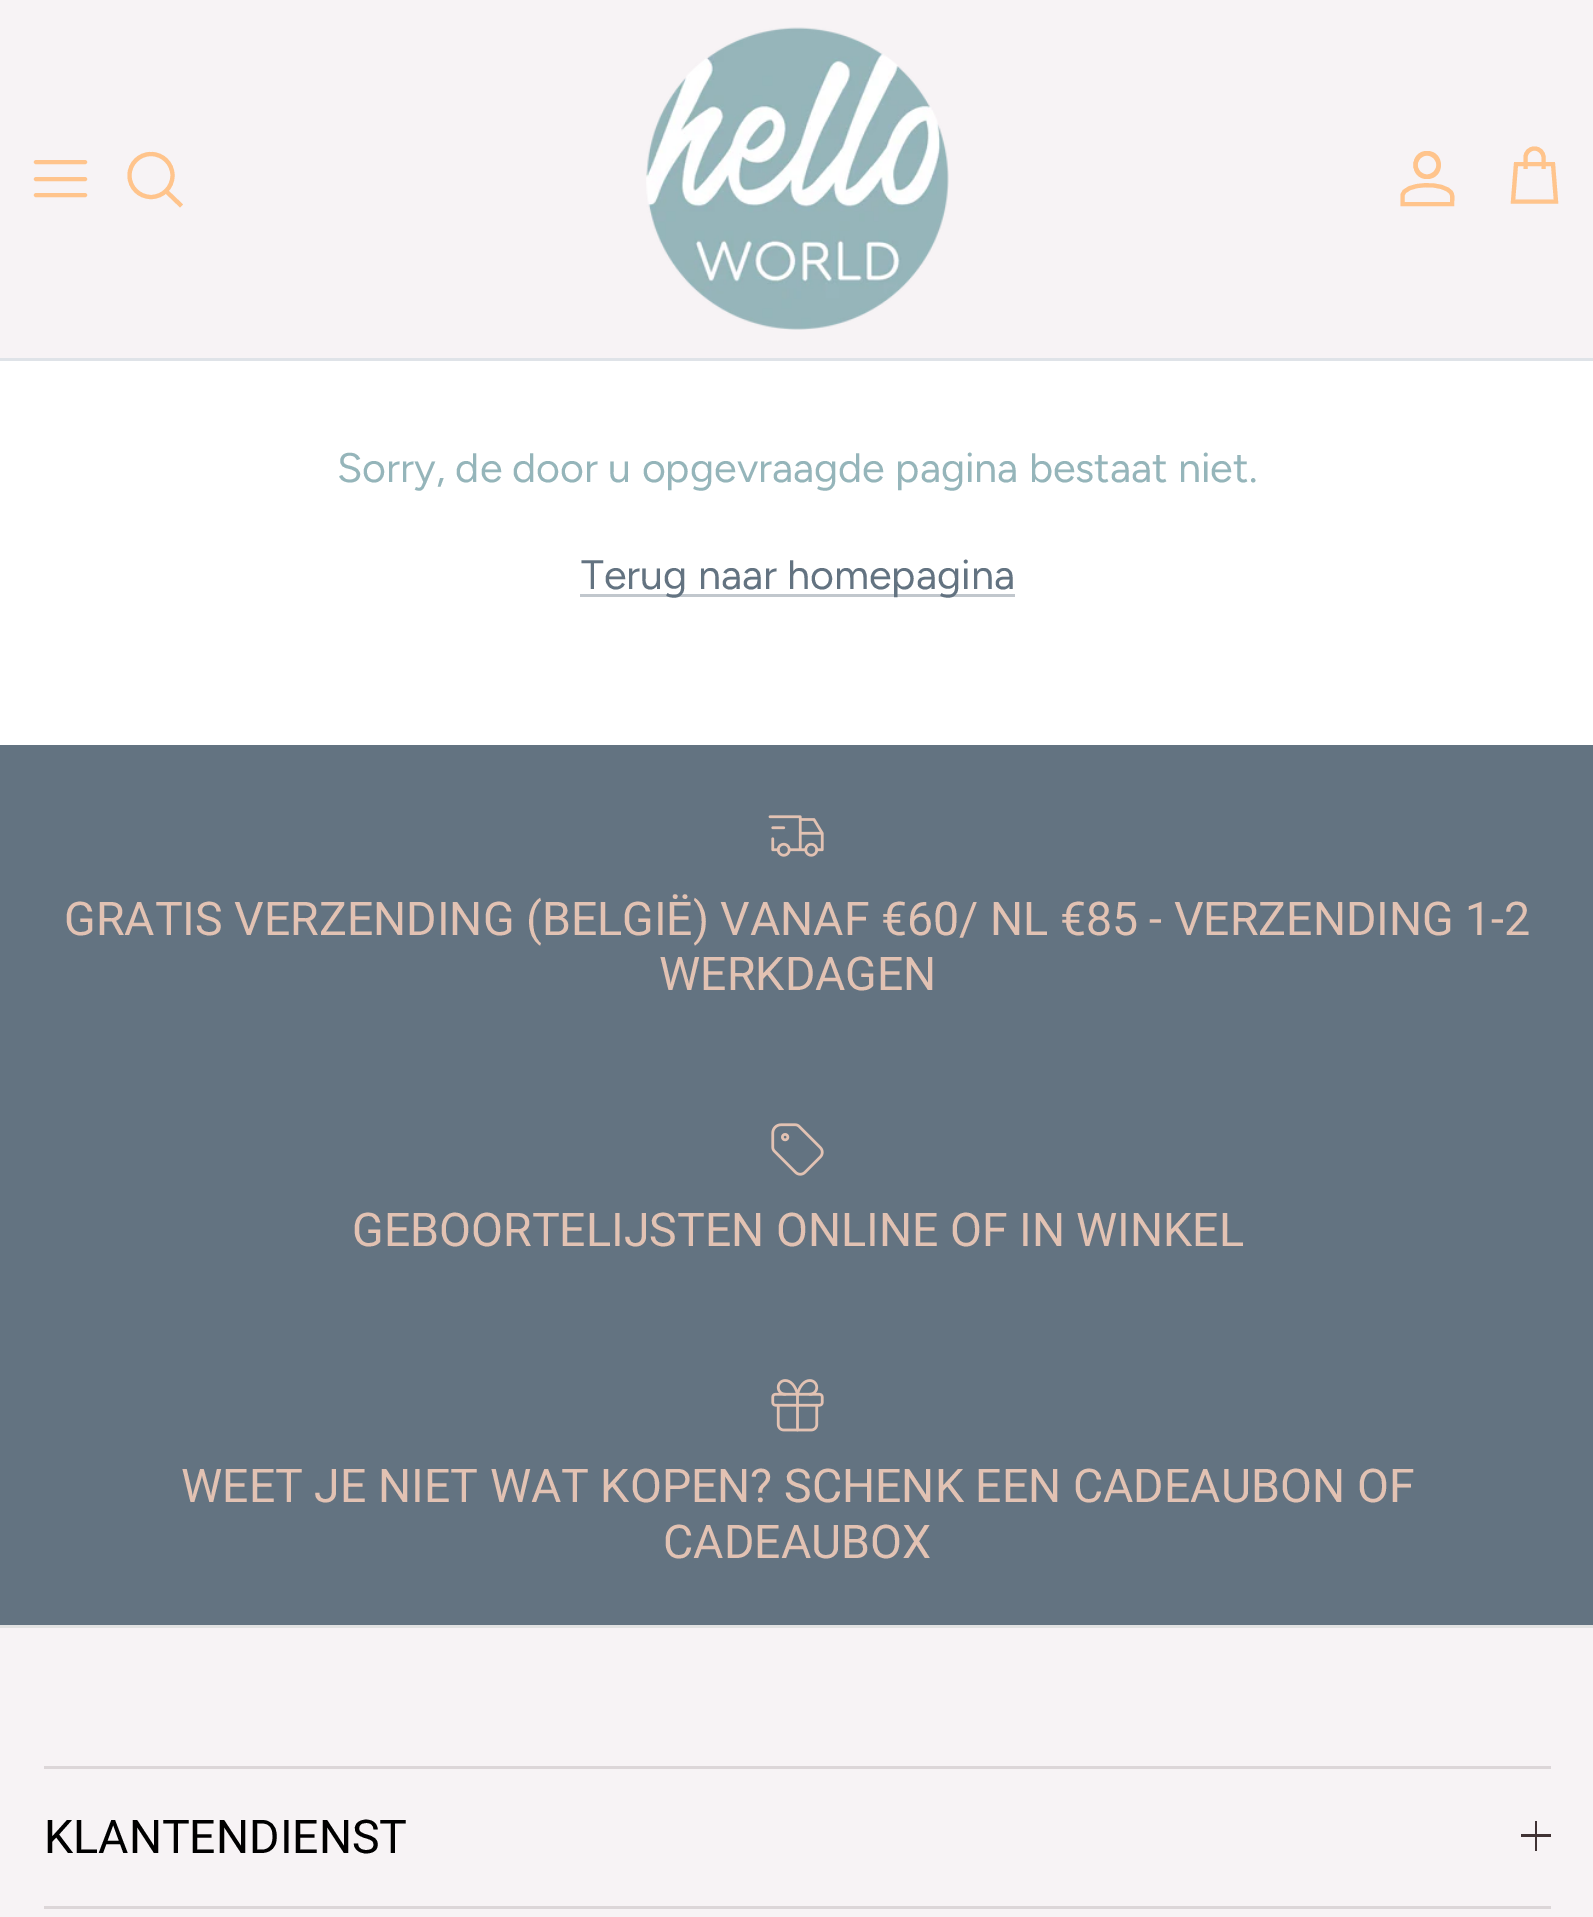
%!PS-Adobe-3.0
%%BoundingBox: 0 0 1593 1917
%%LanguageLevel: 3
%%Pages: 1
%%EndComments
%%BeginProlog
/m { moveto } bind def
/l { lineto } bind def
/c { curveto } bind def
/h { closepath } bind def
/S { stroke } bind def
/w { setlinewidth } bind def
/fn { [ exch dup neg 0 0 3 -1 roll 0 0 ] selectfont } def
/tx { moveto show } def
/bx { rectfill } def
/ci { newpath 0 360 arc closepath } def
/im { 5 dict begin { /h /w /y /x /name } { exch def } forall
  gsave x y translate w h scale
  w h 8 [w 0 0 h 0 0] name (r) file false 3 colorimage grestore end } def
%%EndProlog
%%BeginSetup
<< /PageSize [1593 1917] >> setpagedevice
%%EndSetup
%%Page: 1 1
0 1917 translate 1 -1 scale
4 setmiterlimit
1 setgray
0 0 1593 1917 bx
0.969 0.953 0.961 setrgbcolor
0 0 1593 358 bx
0.875 0.89 0.91 setrgbcolor
0 358 1593 3 bx
1 0.769 0.549 setrgbcolor
4.1 w
1 setlinecap
1 setlinejoin
36 179 m 85 179 l 36 162 m 85 162 l 36 195 m 85 195 l S
0 setlinecap
0 setlinejoin
151 175.5 21.5 ci S
2 setlinecap
167.5 192.5 m 180 204.5 l S
(image0.raw) 646 27 303 303 im
1427 151 m 1445.5 151 1445.5 179 1427 179 c 1409 179 1409 151 1427 151 c h 1427 155 m 1414.5 155 1414.5 175 1427 175 c 1440 175 1440 155 1427 155 c h eofill
0 setlinecap
1427 165 11.5 ci S
1402.5 196 m 1402.5 182.5 1446 181.5 1451.5 193.5 c 1453 196.5 1452 201 1452 204 c 1402.5 204 l h S
1543.5 169 m 1543.5 157.5 l 1543.5 152.5 1539.5 148.5 1534.5 148.5 c 1529.5 148.5 1525.5 152.5 1525.5 157.5 c 1525.5 169 l 1516 164 m 1553 164 l 1556 201.5 l 1513 201.5 l h S
/Figtree-Regular 41.25 fn
0.584 0.71 0.729 setrgbcolor
(Sorry, de door u opgevraagde pagina bestaat niet.) 337 482 tx
0.757 0.78 0.804 setrgbcolor
580 594 435 3 bx
0.388 0.451 0.506 setrgbcolor
(Terug naar homepagina) 581 589 tx
0 745 1593 880 bx
(image1.raw) 768 815 56 42 im
/Roboto-Regular 46.5 fn
0.886 0.761 0.702 setrgbcolor
64 935 m -0.1 0 32 (GRATIS VERZENDING \(BELGIË\) VANAF €60/ NL €85 - VERZENDING 1-2) widthshow
(WERKDAGEN) 659 990 tx
(image2.raw) 771 1123 53 53 im
(GEBOORTELIJSTEN ONLINE OF IN WINKEL) 352 1246 tx
(image3.raw) 771 1379 53 53 im
(WEET JE NIET WAT KOPEN? SCHENK EEN CADEAUBON OF) 181 1502 tx
(CADEAUBOX) 663 1558 tx
0.969 0.953 0.961 setrgbcolor
0 1628 1593 289 bx
0.886 setgray
0 1625 1593 3 bx
0.863 0.839 0.847 setrgbcolor
44 1766 1507 3 bx
44 1906 1507 3 bx
0 setgray
(KLANTENDIENST) 44 1853 tx
0.251 0.196 0.204 setrgbcolor
1535 1821 2 30 bx
1521 1834 30 3 bx
showpage
%%EOF
